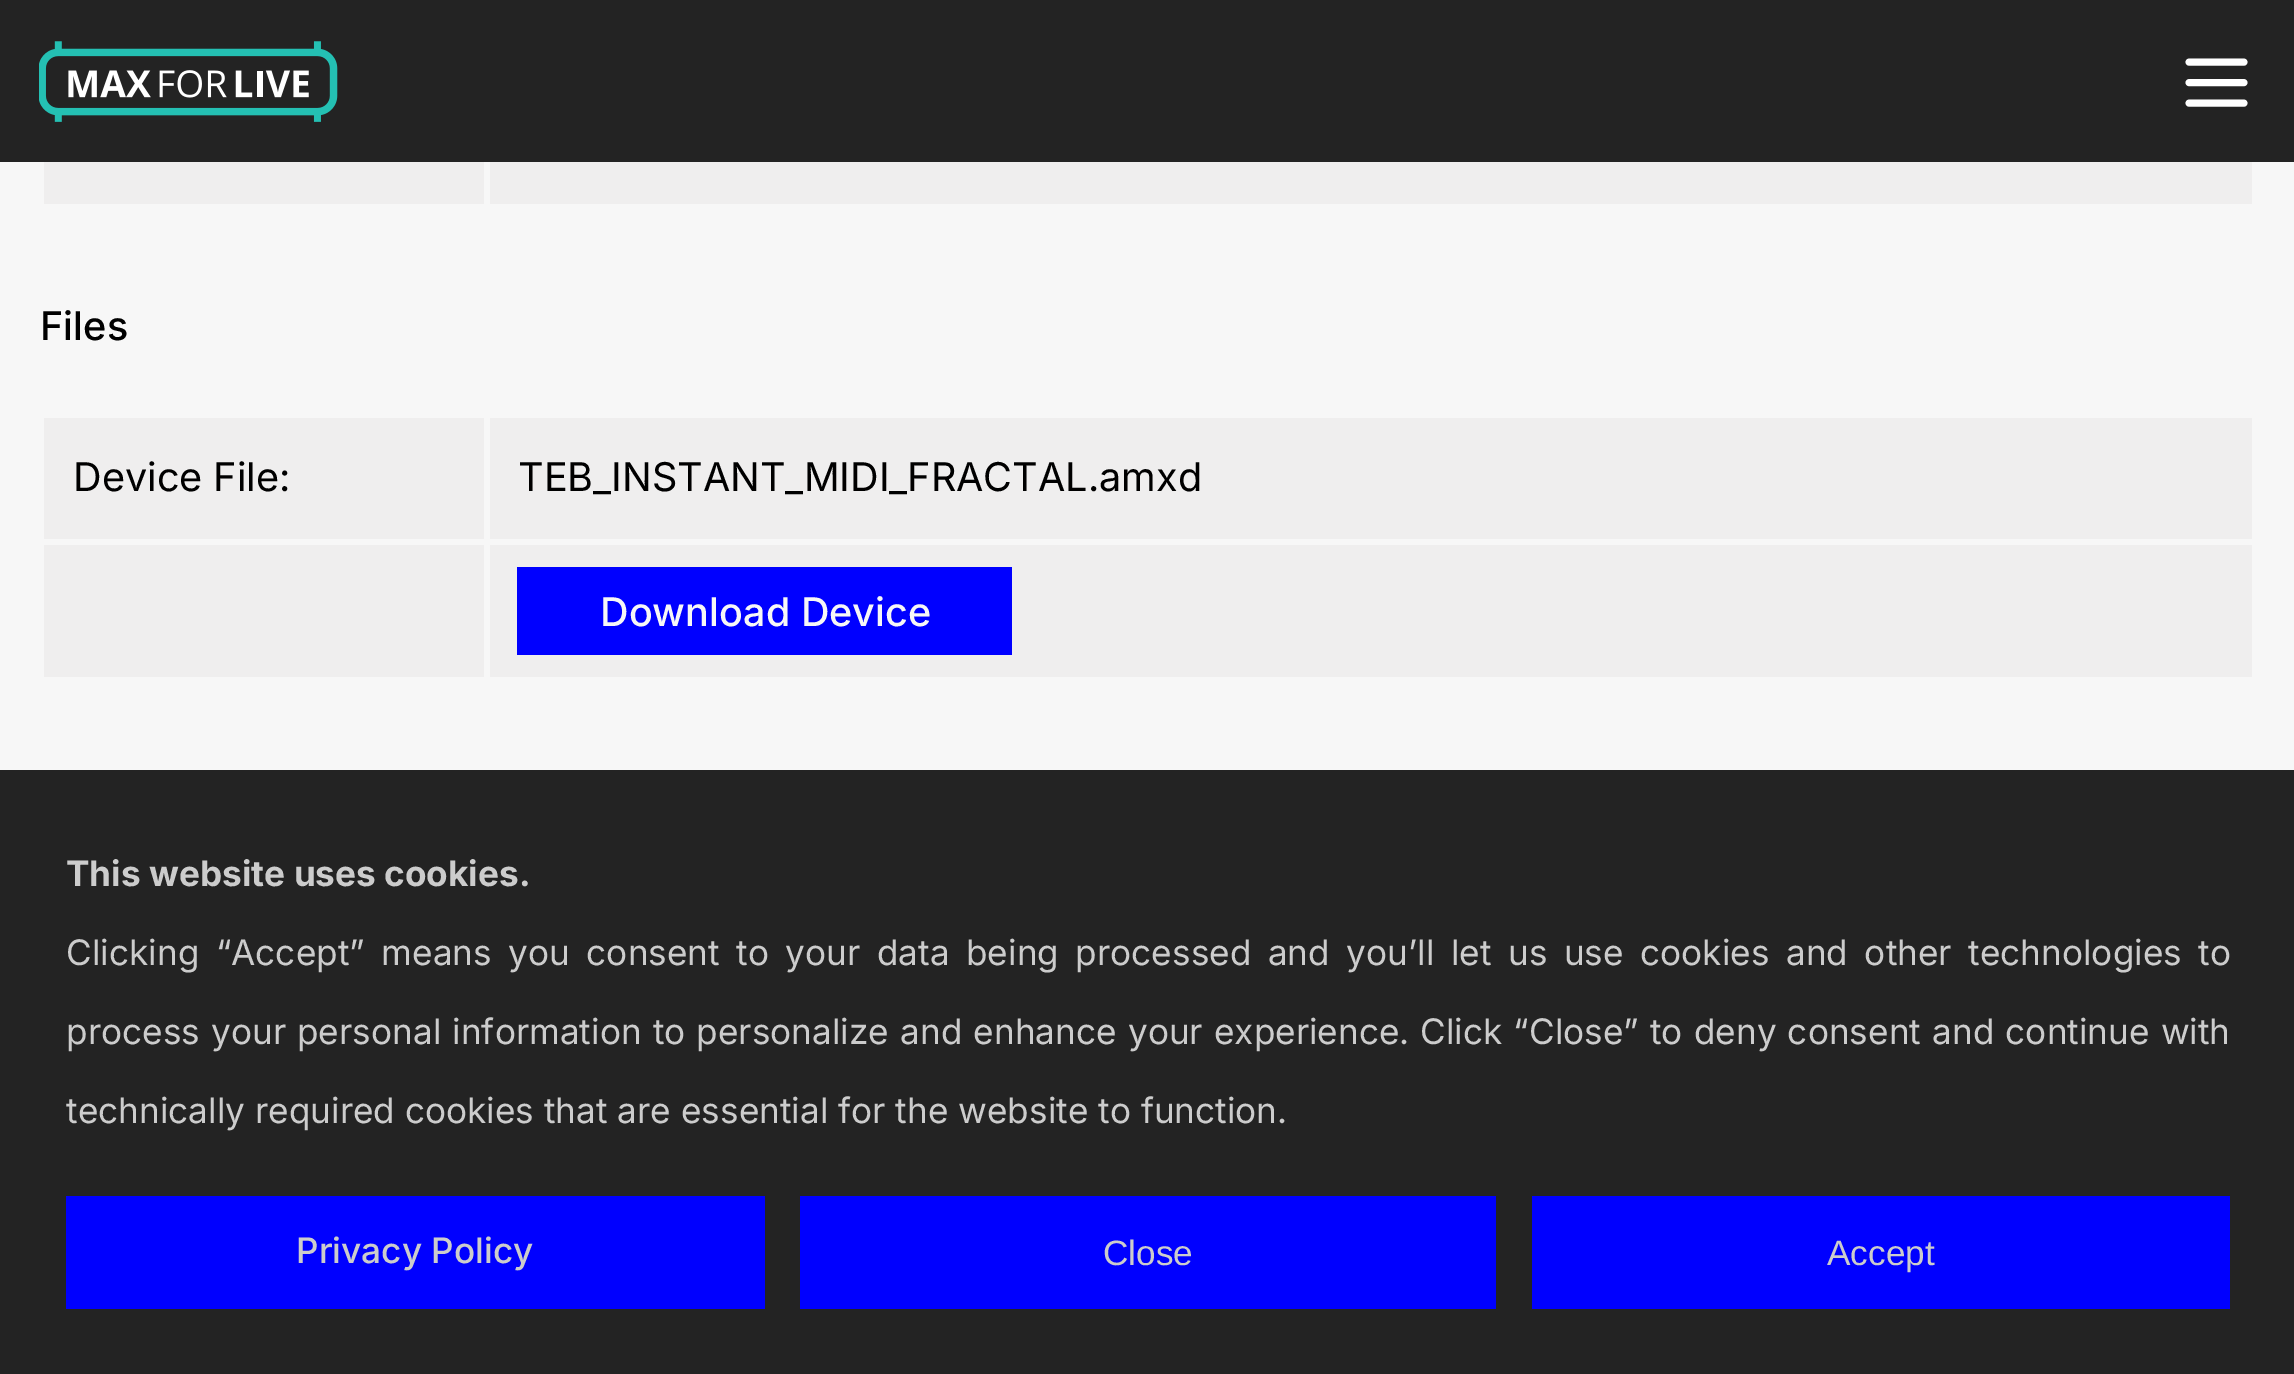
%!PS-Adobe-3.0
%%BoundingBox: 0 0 2294 1374
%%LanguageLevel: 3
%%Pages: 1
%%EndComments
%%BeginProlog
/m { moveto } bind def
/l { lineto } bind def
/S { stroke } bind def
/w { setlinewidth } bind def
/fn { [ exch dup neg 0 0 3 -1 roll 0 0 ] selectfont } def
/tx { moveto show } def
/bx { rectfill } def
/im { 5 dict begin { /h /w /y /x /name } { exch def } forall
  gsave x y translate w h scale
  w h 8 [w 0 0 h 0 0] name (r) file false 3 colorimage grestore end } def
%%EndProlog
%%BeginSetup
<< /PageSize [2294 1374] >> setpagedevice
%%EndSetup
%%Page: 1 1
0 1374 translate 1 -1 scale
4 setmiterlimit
0.969 setgray
0 0 2294 1374 bx
0.137 setgray
0 0 2294 162 bx
(image0.raw) 39 41 299 81 im
1 setgray
6.9 w
1 setlinecap
2189 103 m 2244 103 l 2189 82.5 m 2244 82.5 l 2189 62 m 2244 62 l S
0.937 0.933 0.933 setrgbcolor
44 162 440 42 bx
490 162 1762 42 bx
/Inter-Medium 39.6 fn
0 setgray
(Files) 40 340 tx
0.937 0.933 0.933 setrgbcolor
44 418 440 121 bx
/Inter-Regular 39.6 fn
0 setgray
(Device File:) 73 491 tx
0.937 0.933 0.933 setrgbcolor
490 418 1762 121 bx
0 setgray
(TEB_INSTANT_MIDI_FRACTAL.amxd) 518 491 tx
0.937 0.933 0.933 setrgbcolor
44 545 440 132 bx
490 545 1762 132 bx
0 0 1 setrgbcolor
517 567 495 88 bx
/Inter-Medium 39.6 fn
0.969 setgray
(Download Device) 600 626 tx
0.137 setgray
0 770 2294 604 bx
/Inter-Bold 35.2 fn
0.8 setgray
(This website uses cookies.) 66 886 tx
/Inter-Regular 35.2 fn
66 965 m 6.6 0 32 (Clicking “Accept” means you consent to your data being processed and you’ll let us use cookies and other technologies to) widthshow
66 1044 m 1.25 0 32 (process your personal information to personalize and enhance your experience.) widthshow
1420 1044 m 1.25 0 32 (Click “Close” to deny consent and continue with) widthshow
(technically required cookies that are essential for the website to function.) 66 1123 tx
0 0 1 setrgbcolor
66 1196 699 113 bx
/Inter-Medium 35.2 fn
0.8 setgray
(Privacy Policy) 296 1263 tx
0 0 1 setrgbcolor
800 1196 696 113 bx
/LiberationSans-Regular 35.2 fn
0.8 setgray
(Close) 1103 1265 tx
0 0 1 setrgbcolor
1532 1196 698 113 bx
0.8 setgray
(Accept) 1827 1265 tx
showpage
%%EOF
